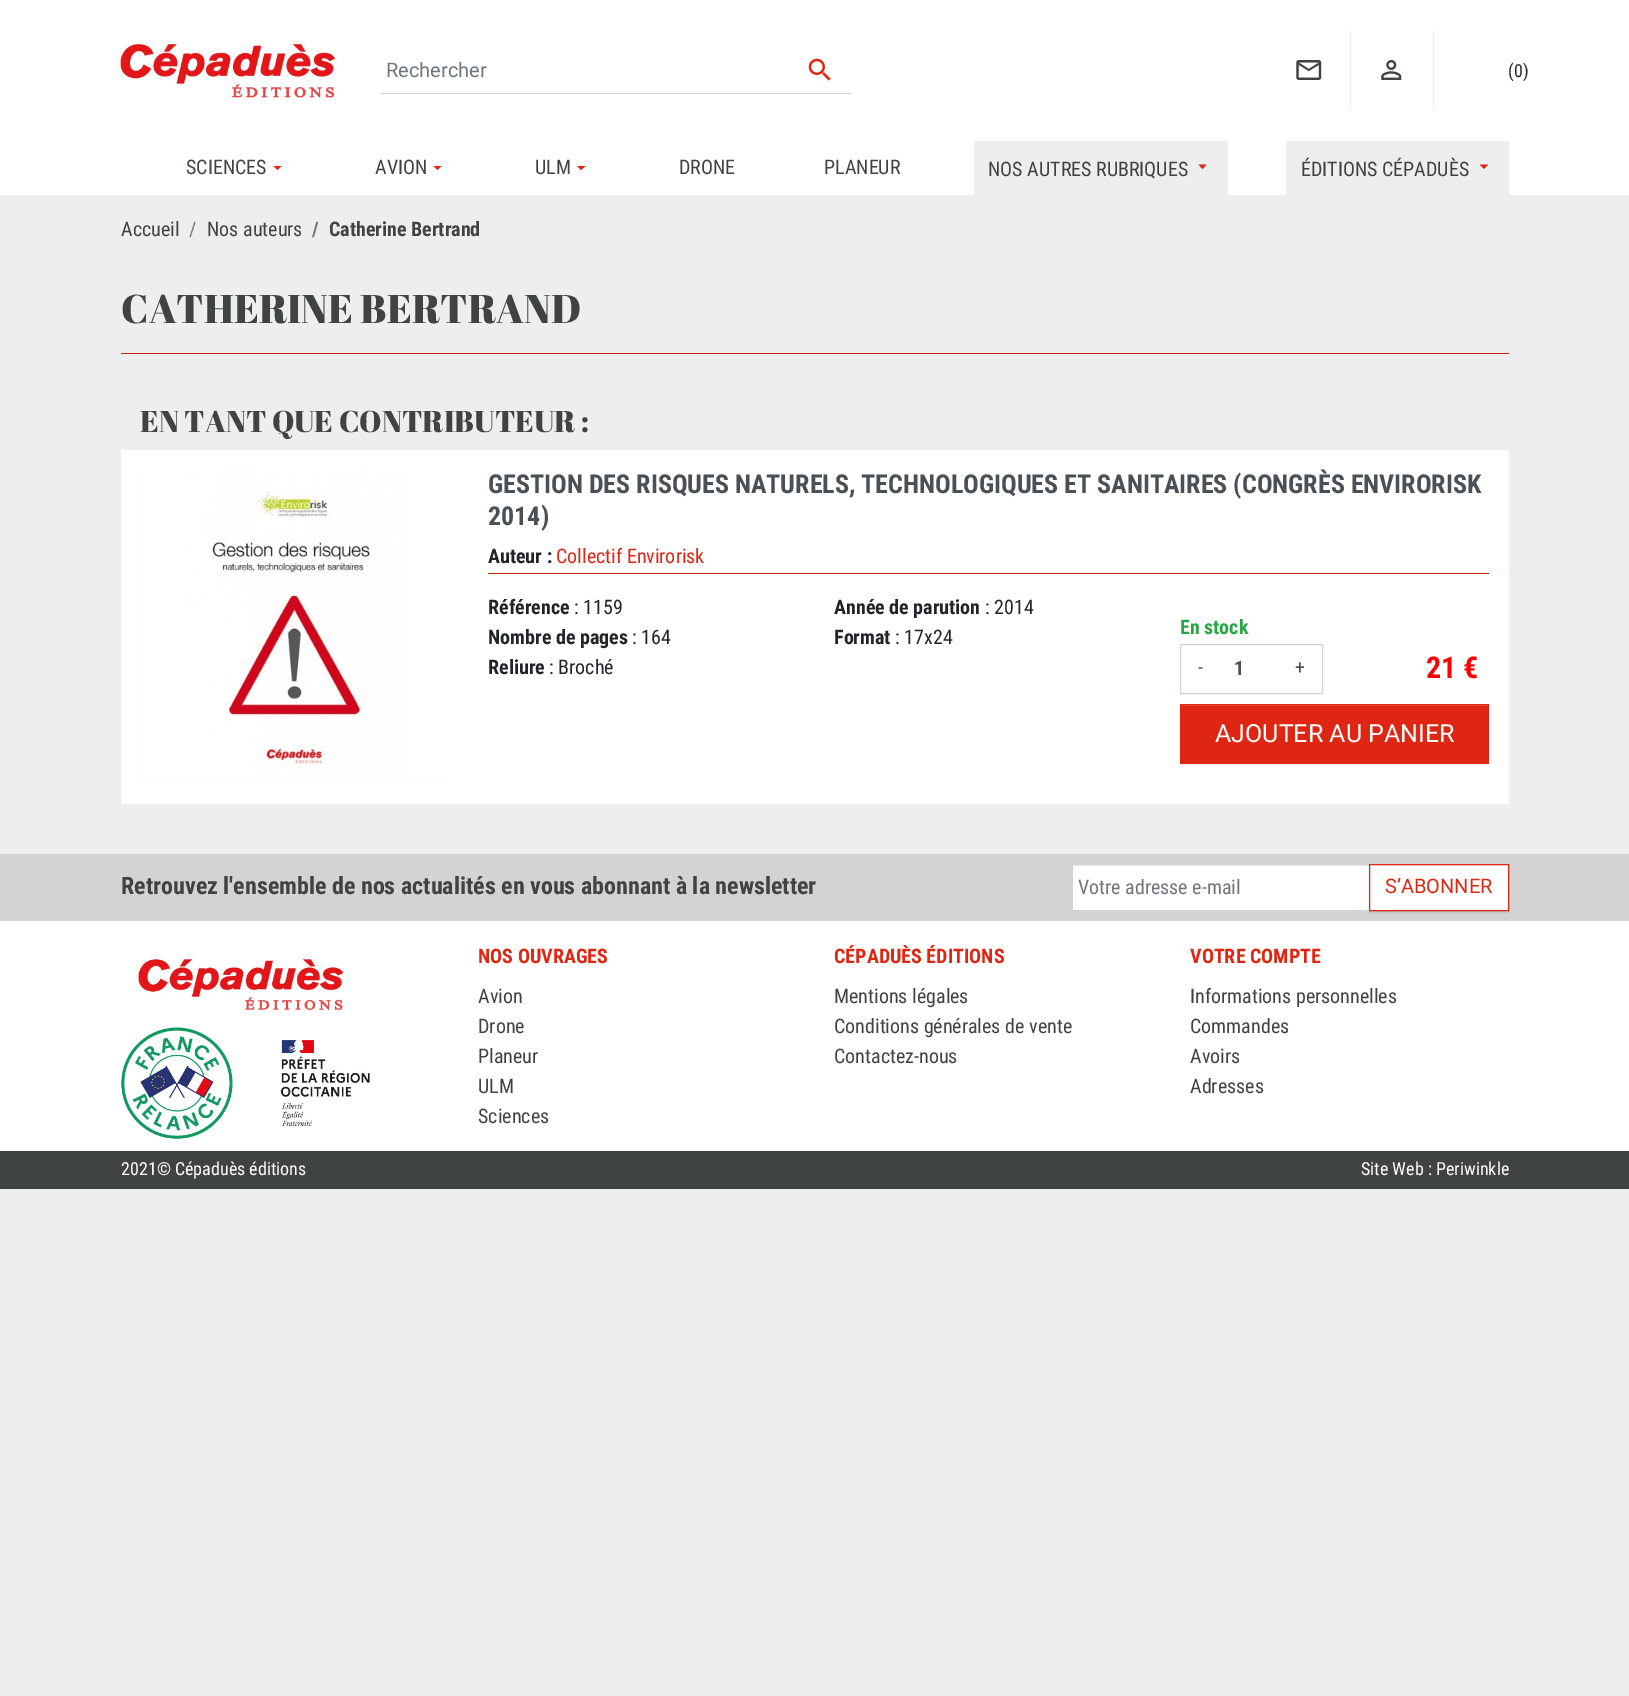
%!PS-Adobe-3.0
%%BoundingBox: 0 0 1629 1696
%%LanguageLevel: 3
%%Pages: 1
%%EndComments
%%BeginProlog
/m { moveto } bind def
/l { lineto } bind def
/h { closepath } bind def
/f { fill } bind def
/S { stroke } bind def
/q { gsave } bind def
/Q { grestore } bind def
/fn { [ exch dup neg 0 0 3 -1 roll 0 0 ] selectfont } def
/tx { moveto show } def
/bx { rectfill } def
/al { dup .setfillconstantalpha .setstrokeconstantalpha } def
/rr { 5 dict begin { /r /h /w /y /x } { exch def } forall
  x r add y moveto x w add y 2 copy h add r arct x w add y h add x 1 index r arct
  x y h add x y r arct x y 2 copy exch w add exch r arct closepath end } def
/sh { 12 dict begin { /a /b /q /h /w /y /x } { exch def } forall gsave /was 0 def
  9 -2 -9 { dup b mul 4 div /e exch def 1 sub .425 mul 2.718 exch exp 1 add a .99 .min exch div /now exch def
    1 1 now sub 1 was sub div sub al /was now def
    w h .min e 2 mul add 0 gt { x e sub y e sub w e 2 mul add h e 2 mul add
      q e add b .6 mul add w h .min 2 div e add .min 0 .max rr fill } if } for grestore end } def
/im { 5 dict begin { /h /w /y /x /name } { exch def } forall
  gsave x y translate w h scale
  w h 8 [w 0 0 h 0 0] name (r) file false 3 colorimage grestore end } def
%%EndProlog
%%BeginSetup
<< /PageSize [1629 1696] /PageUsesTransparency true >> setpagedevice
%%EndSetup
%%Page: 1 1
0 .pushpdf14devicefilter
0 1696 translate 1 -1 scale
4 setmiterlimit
0.933 setgray
0 0 1629 1696 bx
1 setgray
0 0 1629 195 bx
(image0.raw) 118 40 220 60 im
0.808 0.831 0.855 setrgbcolor
381 93 470 1 bx
/Roboto-Regular 20 fn
0.424 0.459 0.49 setrgbcolor
(Rechercher) 386 77 tx
(image1.raw) 808 58 23 23 im
0.933 setgray
1350 30 1 81 bx
(image2.raw) 1296 60 26 20 im
1433 30 1 81 bx
(image3.raw) 1381 60 21 20 im
/RobotoCondensed-Regular 18 fn
0.129 0.145 0.161 setrgbcolor
(\(0\)) 1508 77 tx
/RobotoCondensed-Regular 20 fn
0.247 0.263 0.267 setrgbcolor
(SCIENCES) 186 174 tx
0.875 0.149 0.071 setrgbcolor
273.5 166 m 281.5 166 l 277.5 170 l h f
0.247 0.263 0.267 setrgbcolor
(AVION) 375 174 tx
0.875 0.149 0.071 setrgbcolor
433.5 166 m 441.5 166 l 437.5 170 l h f
0.247 0.263 0.267 setrgbcolor
(ULM) 535 174 tx
0.875 0.149 0.071 setrgbcolor
577 166 m 585.5 166 l 581 170 l h f
0.247 0.263 0.267 setrgbcolor
(DRONE) 679 174 tx
(PLANEUR) 824 174 tx
0.933 setgray
974 141 254 54 bx
0.247 0.263 0.267 setrgbcolor
(NOS AUTRES RUBRIQUES) 988 176 tx
0.875 0.149 0.071 setrgbcolor
1198.5 164.5 m 1206.5 164.5 l 1202.5 169 l h f
0.933 setgray
1286 141 223 54 bx
0.247 0.263 0.267 setrgbcolor
(ÉDITIONS CÉPADUÈS) 1301 176 tx
0.875 0.149 0.071 setrgbcolor
1479.5 164.5 m 1488 164.5 l 1484 169 l h f
0.247 0.263 0.267 setrgbcolor
(Accueil) 121 236 tx
0.424 0.459 0.49 setrgbcolor
(/) 189 236 tx
0.247 0.263 0.267 setrgbcolor
(Nos auteurs) 207 236 tx
/RobotoCondensed-Bold 20 fn
0.424 0.459 0.49 setrgbcolor
(/) 312 236 tx
0.247 0.263 0.267 setrgbcolor
(Catherine Bertrand) 329 236 tx
/AbrilFatface-Regular 40 fn
(CATHERINE BERTRAND) 121 323 tx
0.788 0.133 0.063 setrgbcolor
121 353 1388 1 bx
/AbrilFatface-Regular 30 fn
0.247 0.263 0.267 setrgbcolor
(EN TANT QUE CONTRIBUTEUR :) 140 432 tx
1 setgray
121 450 1388 354 bx
0.953 setgray
141 470 309 309 bx
(image4.raw) 141 470 309 309 im
/RobotoCondensed-Bold 26 fn
0.286 0.314 0.341 setrgbcolor
(GESTION DES RISQUES NATURELS, TECHNOLOGIQUES ET SANITAIRES \(CONGRÈS ENVIRORISK) 488 493 tx
(2014\)) 488 525 tx
/RobotoCondensed-Bold 20 fn
0.129 0.145 0.161 setrgbcolor
(Auteur :) 488 563 tx
/RobotoCondensed-Regular 20 fn
0.875 0.149 0.071 setrgbcolor
(Collectif Envirorisk) 556 563 tx
0.788 0.133 0.063 setrgbcolor
488 573 1001 1 bx
/RobotoCondensed-Bold 20 fn
0.129 0.145 0.161 setrgbcolor
(Référence) 488 614 tx
/RobotoCondensed-Regular 20 fn
(: 1159) 574 614 tx
/RobotoCondensed-Bold 20 fn
(Année de parution) 834 614 tx
/RobotoCondensed-Regular 20 fn
(: 2014) 985 614 tx
/RobotoCondensed-Bold 20 fn
(Nombre de pages) 488 644 tx
/RobotoCondensed-Regular 20 fn
(: 164) 632 644 tx
/RobotoCondensed-Bold 20 fn
(Format) 834 644 tx
/RobotoCondensed-Regular 20 fn
(: 17x24) 895 644 tx
/RobotoCondensed-Bold 20 fn
(Reliure) 488 674 tx
/RobotoCondensed-Regular 20 fn
(: Broché) 549 674 tx
/RobotoCondensed-Bold 20 fn
0.157 0.655 0.271 setrgbcolor
(En stock) 1180 634 tx
0.808 0.831 0.855 setrgbcolor
1180.5 644.5 142 49 rectstroke
/RobotoCondensed-Regular 20 fn
0.286 0.314 0.341 setrgbcolor
(-) 1198 674 tx
/RobotoCondensed-Bold 20 fn
(1) 1234 675 tx
/RobotoCondensed-Regular 20 fn
(+) 1295 674 tx
/RobotoCondensed-Bold 30 fn
1 0 0 setrgbcolor
(21 €) 1426 678 tx
0 setgray
1180 705 309 60 0 0.5 0.07 sh
0.875 0.149 0.071 setrgbcolor
1180 704 309 60 bx
0.894 0.278 0.212 setrgbcolor
1181 705 307 1 bx
/Roboto-Regular 25 fn
1 setgray
(AJOUTER AU PANIER) 1215 742 tx
0.827 setgray
0 854 1629 67 bx
/RobotoCondensed-Bold 24 fn
0.247 0.263 0.267 setrgbcolor
(Retrouvez l'ensemble de nos actualités en vous abonnant à la newsletter) 121 894 tx
1 setgray
1073 866 296 44 bx
0.925 setgray
1073 865 296 1 bx
0.808 0.831 0.855 setrgbcolor
1071.5 864.5 298 46 rectstroke
/RobotoCondensed-Regular 20 fn
0.424 0.459 0.49 setrgbcolor
(Votre adresse e-mail) 1078 894 tx
0 setgray
1369 865 140 48 0 0.5 0.07 sh
1 setgray
1369.5 864.5 m 1508.5 864.5 l 1508.5 910.5 l 1369.5 910.5 l h q f Q
0.875 0.149 0.071 setrgbcolor
S
/Roboto-Regular 20 fn
(S’ABONNER) 1385 893 tx
1 setgray
0 921 1629 230 bx
(image5.raw) 136 956 210 57 im
(image6.raw) 121 1027 112 112 im
(image7.raw) 280 1040 90 87 im
/RobotoCondensed-Bold 20 fn
0.875 0.149 0.071 setrgbcolor
(NOS OUVRAGES) 478 963 tx
/RobotoCondensed-Regular 20 fn
0.247 0.263 0.267 setrgbcolor
(Avion) 478 1003 tx
(Drone) 478 1033 tx
(Planeur) 478 1063 tx
(ULM) 478 1093 tx
(Sciences) 478 1123 tx
/RobotoCondensed-Bold 20 fn
0.875 0.149 0.071 setrgbcolor
(CÉPADUÈS ÉDITIONS) 834 963 tx
/RobotoCondensed-Regular 20 fn
0.247 0.263 0.267 setrgbcolor
(Mentions légales) 834 1003 tx
(Conditions générales de vente) 834 1033 tx
(Contactez-nous) 834 1063 tx
/RobotoCondensed-Bold 20 fn
0.875 0.149 0.071 setrgbcolor
(VOTRE COMPTE) 1190 963 tx
/RobotoCondensed-Regular 20 fn
0.247 0.263 0.267 setrgbcolor
(Informations personnelles) 1190 1003 tx
(Commandes) 1190 1033 tx
(Avoirs) 1190 1063 tx
(Adresses) 1190 1093 tx
0 1151 1629 38 bx
/RobotoCondensed-Regular 18 fn
1 setgray
(2021© Cépaduès éditions) 121 1175 tx
(Site Web : Periwinkle) 1361 1175 tx
.poppdf14devicefilter showpage
%%EOF
